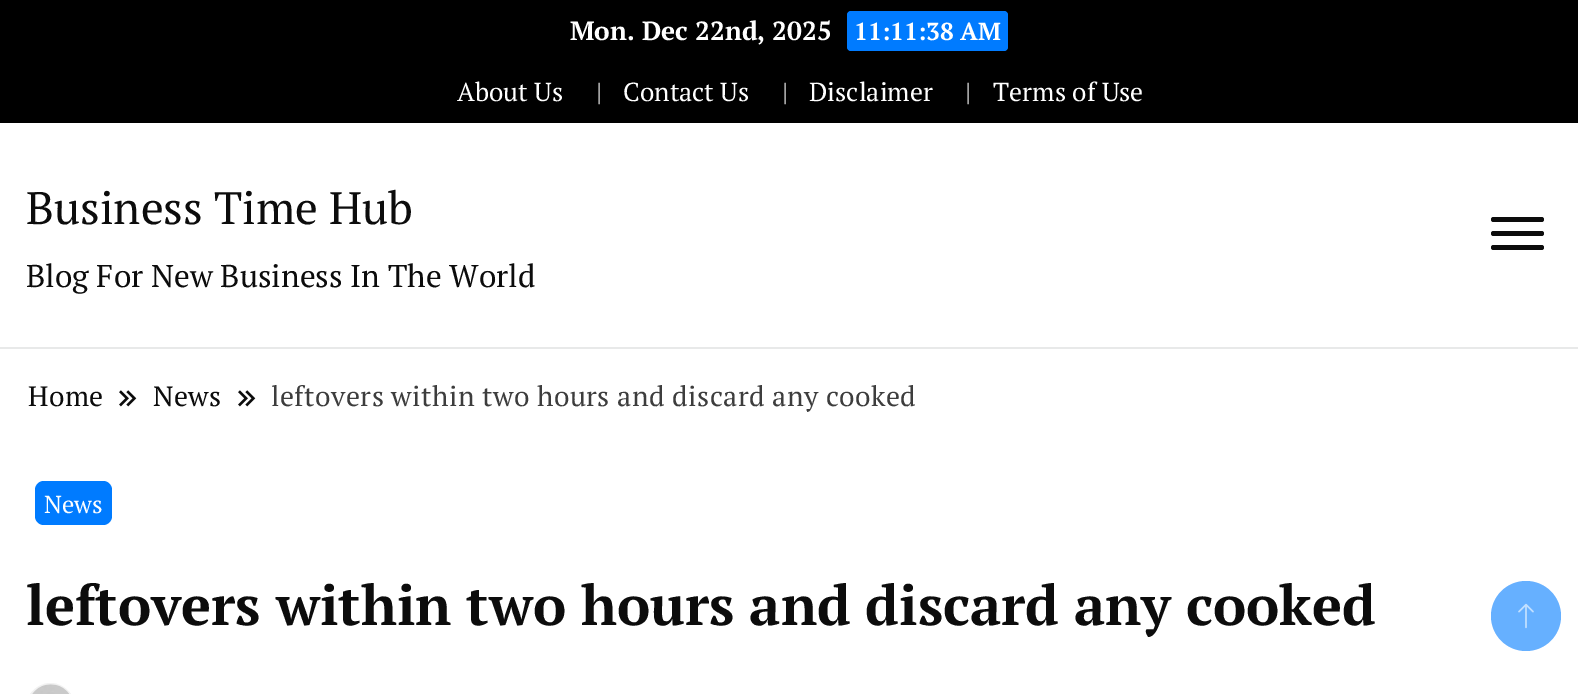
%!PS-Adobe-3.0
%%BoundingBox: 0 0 1578 694
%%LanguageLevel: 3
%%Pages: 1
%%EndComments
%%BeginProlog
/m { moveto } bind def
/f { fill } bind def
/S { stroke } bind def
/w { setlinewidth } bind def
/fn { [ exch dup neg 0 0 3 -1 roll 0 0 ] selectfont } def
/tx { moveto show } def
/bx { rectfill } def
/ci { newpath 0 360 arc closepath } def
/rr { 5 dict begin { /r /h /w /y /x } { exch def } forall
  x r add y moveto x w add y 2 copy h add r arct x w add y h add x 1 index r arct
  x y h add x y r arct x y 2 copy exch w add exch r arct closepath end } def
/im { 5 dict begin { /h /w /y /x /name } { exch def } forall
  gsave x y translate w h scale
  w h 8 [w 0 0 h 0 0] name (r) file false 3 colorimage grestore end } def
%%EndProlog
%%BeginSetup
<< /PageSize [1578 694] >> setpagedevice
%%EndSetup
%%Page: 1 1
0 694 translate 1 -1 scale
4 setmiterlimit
1 setgray
0 0 1578 694 bx
0.91 0.914 0.914 setrgbcolor
0 347 1578 2 bx
0 setgray
0 0 1578 123 bx
/PTSerif-Bold 26.25 fn
1 setgray
(Mon. Dec 22nd, 2025) 570 40 tx
0 0.482 1 setrgbcolor
847 11 161 40 4 rr f
/PTSerif-Bold 24.5 fn
1 setgray
(11:11:38 AM) 854 40 tx
/PTSerif-Regular 26 fn
(About Us) 457 101 tx
0.867 setgray
(|) 596 101 tx
1 setgray
(Contact Us) 623 101 tx
0.867 setgray
(|) 782 101 tx
1 setgray
(Disclaimer) 809 101 tx
0.867 setgray
(|) 965 101 tx
1 setgray
(Terms of Use) 993 101 tx
/PTSerif-Regular 45.5 fn
0.047 setgray
(Business Time Hub) 26 224 tx
/PTSerif-Regular 31.5 fn
(Blog For New Business In The World) 26 287 tx
1491 217 53 5 2.5 rr f
1491 231 53 5 2.5 rr f
1491 245 53 5 2.5 rr f
/PTSerif-Regular 28 fn
28 406 m 0.45 0 (Home) ashow
(image0.raw) 119 390 18 17 im
153 406 m 0.45 0 (News) ashow
(image0.raw) 238 390 18 17 im
0.239 setgray
271 406 m 0.45 0 (leftovers within two hours and discard any cooked) ashow
0 0.482 1 setrgbcolor
35 481 77 44 9 rr f
/PTSerif-Regular 24.5 fn
1 setgray
(News) 44 513 tx
/PTSerif-Bold 56 fn
0.047 setgray
(leftovers within two hours and discard any cooked) 26 625 tx
0.949 setgray
2 w
27 684 47 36 23.5 rr S
(image1.raw) 32 684 37 10 im
0.4 0.69 1 setrgbcolor
1526 616 35 ci f
(image2.raw) 1518 603 16 26 im
showpage
%%EOF
